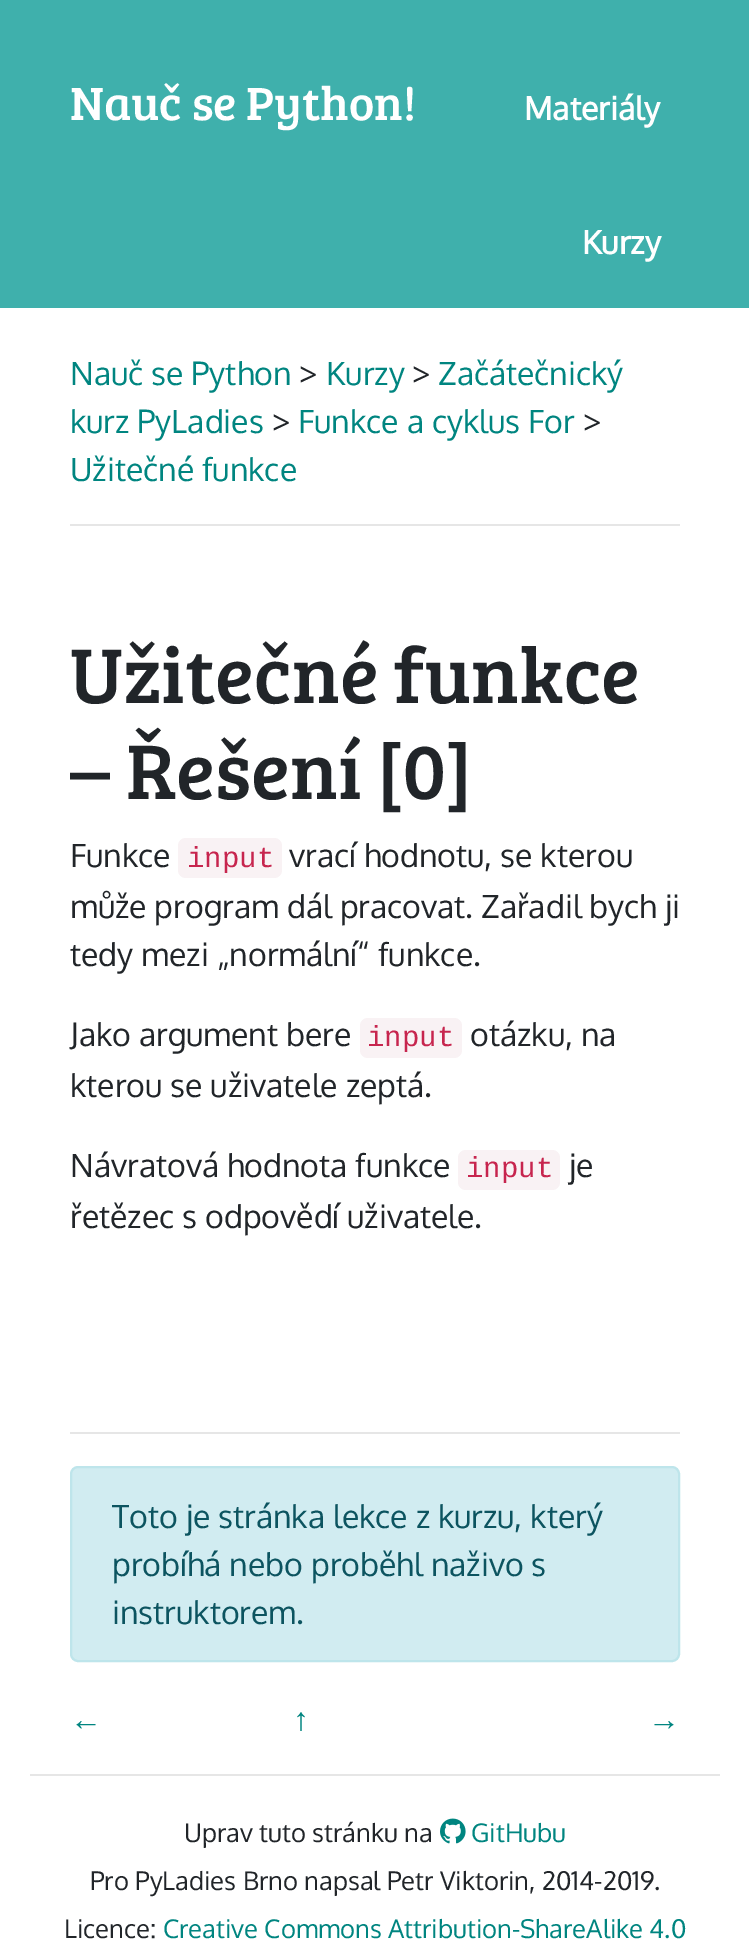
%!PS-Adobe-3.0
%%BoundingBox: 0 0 749 1952
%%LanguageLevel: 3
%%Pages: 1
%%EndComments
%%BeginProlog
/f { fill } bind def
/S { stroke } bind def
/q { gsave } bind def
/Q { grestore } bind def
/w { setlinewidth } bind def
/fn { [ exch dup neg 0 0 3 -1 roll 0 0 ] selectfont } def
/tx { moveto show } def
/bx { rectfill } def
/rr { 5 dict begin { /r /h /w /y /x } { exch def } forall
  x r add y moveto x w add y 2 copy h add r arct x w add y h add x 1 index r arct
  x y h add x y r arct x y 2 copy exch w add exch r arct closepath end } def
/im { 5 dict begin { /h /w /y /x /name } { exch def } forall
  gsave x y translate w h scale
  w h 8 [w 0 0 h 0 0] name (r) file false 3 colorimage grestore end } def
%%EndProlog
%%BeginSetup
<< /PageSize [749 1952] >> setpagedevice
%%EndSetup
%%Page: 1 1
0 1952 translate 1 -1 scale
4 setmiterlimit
1 setgray
0 0 749 1952 bx
0.247 0.69 0.675 setrgbcolor
0 0 749 308 bx
/BreeSerif-Regular 48 fn
1 setgray
(Nauč se Python!) 70 120 tx
/Oxygen-Bold 32 fn
(Materiály) 524 120 tx
(Kurzy) 582 254 tx
/Oxygen-Regular 32 fn
0 0.522 0.502 setrgbcolor
(Nauč se Python) 70 385 tx
0.129 0.145 0.161 setrgbcolor
(>) 299 385 tx
0 0.522 0.502 setrgbcolor
(Kurzy) 326 385 tx
0.129 0.145 0.161 setrgbcolor
(>) 412 385 tx
0 0.522 0.502 setrgbcolor
(Začátečnický) 438 385 tx
(kurz PyLadies) 70 433 tx
0.129 0.145 0.161 setrgbcolor
(>) 272 433 tx
0 0.522 0.502 setrgbcolor
(Funkce a cyklus For) 298 433 tx
0.129 0.145 0.161 setrgbcolor
(>) 583 433 tx
0 0.522 0.502 setrgbcolor
(Užitečné funkce) 70 481 tx
0.902 setgray
70 524 610 2 bx
/BreeSerif-Regular 80 fn
0.129 0.145 0.161 setrgbcolor
(Užitečné funkce) 70 703 tx
(– Řešení [0]) 70 799 tx
/Oxygen-Regular 32 fn
(Funkce) 70 867 tx
0.976 0.949 0.957 setrgbcolor
178 838 104 40 8 rr f
/LiberationMono-Regular 29 fn
0.78 0.145 0.306 setrgbcolor
(input) 187 867 tx
/Oxygen-Regular 32 fn
0.129 0.145 0.161 setrgbcolor
(vrací hodnotu, se kterou) 289 867 tx
(může program dál pracovat. Zařadil bych ji) 70 918 tx
(tedy mezi „normální“ funkce.) 70 966 tx
(Jako argument bere) 70 1046 tx
0.976 0.949 0.957 setrgbcolor
360 1018 102 40 8 rr f
/LiberationMono-Regular 29 fn
0.78 0.145 0.306 setrgbcolor
(input) 367 1046 tx
/Oxygen-Regular 32 fn
0.129 0.145 0.161 setrgbcolor
(otázku, na) 470 1046 tx
(kterou se uživatele zeptá.) 70 1097 tx
(Návratová hodnota funkce) 70 1177 tx
0.976 0.949 0.957 setrgbcolor
458 1150 102 40 8 rr f
/LiberationMono-Regular 29 fn
0.78 0.145 0.306 setrgbcolor
(input) 466 1177 tx
/Oxygen-Regular 32 fn
0.129 0.145 0.161 setrgbcolor
(je) 569 1177 tx
(řetězec s odpovědí uživatele.) 70 1228 tx
0.902 setgray
70 1432 610 2 bx
0.82 0.925 0.945 setrgbcolor
71 1467 608 194 7 rr q f Q
0.745 0.898 0.922 setrgbcolor
2 w
S
0.047 0.329 0.376 setrgbcolor
(Toto je stránka lekce z kurzu, který) 112 1528 tx
(probíhá nebo proběhl naživo s) 112 1576 tx
(instruktorem.) 112 1624 tx
/LiberationSans-Regular 32 fn
0 0.522 0.502 setrgbcolor
(←) 70 1730 tx
(↑) 293 1730 tx
(→) 648 1730 tx
0.902 setgray
30 1774 690 2 bx
/Oxygen-Regular 25.6 fn
0.129 0.145 0.161 setrgbcolor
(Uprav tuto stránku na) 184 1842 tx
(image0.raw) 440 1818 26 26 im
0 0.522 0.502 setrgbcolor
(GitHubu) 471 1842 tx
0.129 0.145 0.161 setrgbcolor
(Pro PyLadies Brno napsal Petr Viktorin, 2014-2019.) 90 1890 tx
(Licence:) 64 1938 tx
0 0.522 0.502 setrgbcolor
(Creative Commons Attribution-ShareAlike 4.0) 163 1938 tx
showpage
%%EOF
